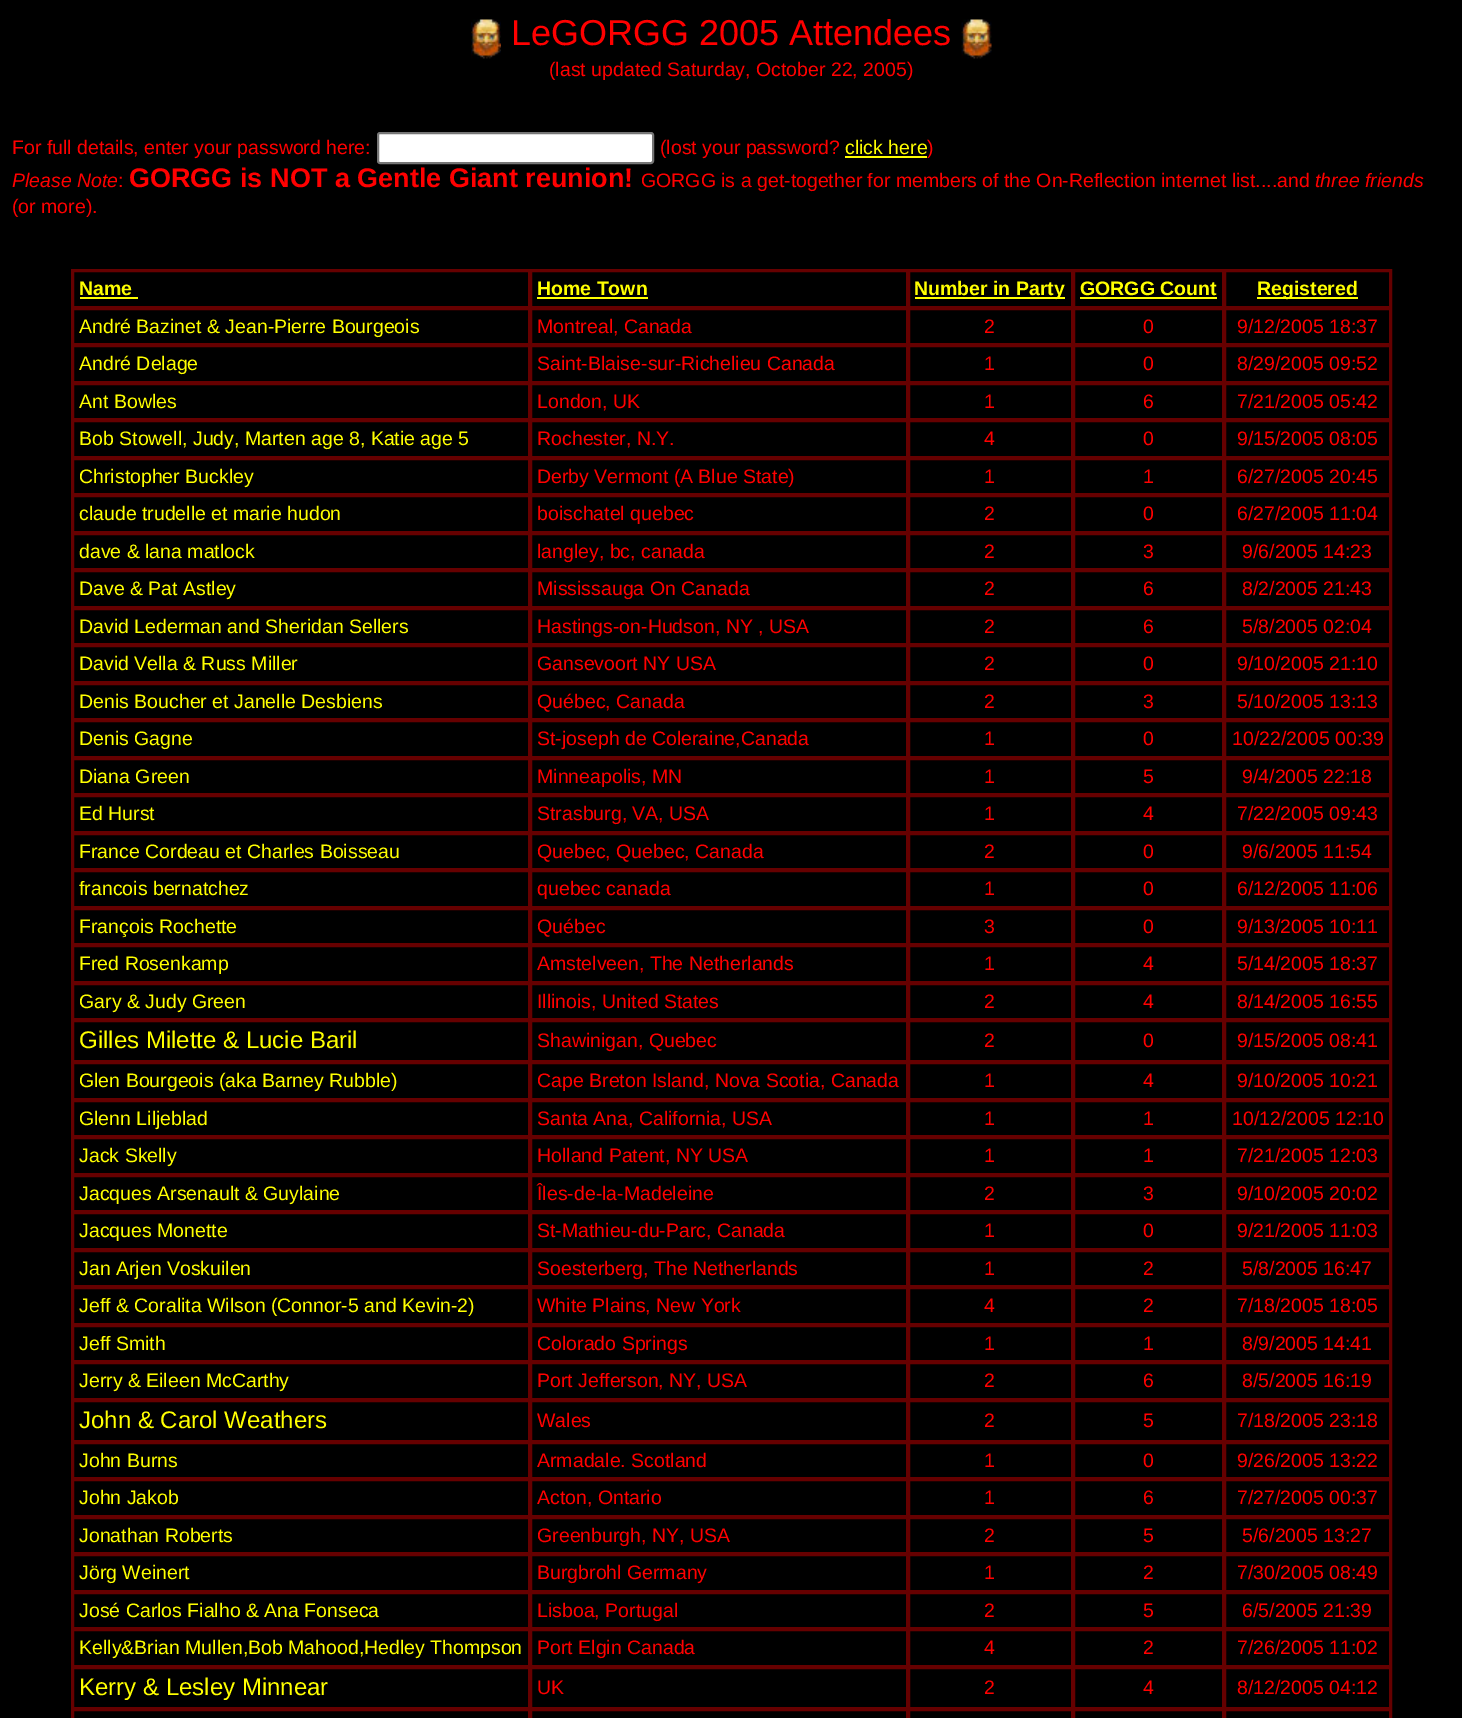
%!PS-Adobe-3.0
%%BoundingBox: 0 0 1462 1718
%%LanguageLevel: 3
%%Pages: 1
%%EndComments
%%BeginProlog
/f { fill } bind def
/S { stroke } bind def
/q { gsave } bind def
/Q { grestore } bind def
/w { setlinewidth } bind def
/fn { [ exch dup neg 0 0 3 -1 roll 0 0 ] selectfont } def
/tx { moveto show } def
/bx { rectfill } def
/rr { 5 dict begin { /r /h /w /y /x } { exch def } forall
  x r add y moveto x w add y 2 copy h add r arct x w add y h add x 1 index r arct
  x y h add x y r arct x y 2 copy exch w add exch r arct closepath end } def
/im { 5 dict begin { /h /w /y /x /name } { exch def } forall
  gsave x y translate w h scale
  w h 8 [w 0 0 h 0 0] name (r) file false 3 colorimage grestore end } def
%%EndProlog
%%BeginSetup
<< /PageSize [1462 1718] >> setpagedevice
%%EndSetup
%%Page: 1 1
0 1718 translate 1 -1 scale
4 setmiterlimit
0 setgray
0 0 1462 1718 bx
(image0.raw) 471 19 30 40 im
/LiberationSans-Regular 36 fn
1 0 0 setrgbcolor
(LeGORGG 2005 Attendees) 511 45 tx
(image1.raw) 961 19 31 40 im
/LiberationSans-Regular 19.5 fn
(\(last updated Saturday, October 22, 2005\)) 549 76 tx
(For full details, enter your password here:) 12 154 tx
1 setgray
378 133 275 30 2 rr q f Q
0.463 setgray
2 w
S
1 0 0 setrgbcolor
(\(lost your password?) 660 154 tx
1 1 0 setrgbcolor
(click here) 845 154 tx
1 0 0 setrgbcolor
(\)) 927 154 tx
1 1 0 setrgbcolor
845 156 82 2 bx
/LiberationSans-Italic 19.5 fn
1 0 0 setrgbcolor
(Please Note) 12 187 tx
/LiberationSans-Regular 19.5 fn
(:) 118 187 tx
/LiberationSans-Bold 27 fn
(GORGG is NOT a Gentle Giant reunion!) 129 187 tx
/LiberationSans-Regular 19.5 fn
(GORGG is a get-together for members of the On-Reflection internet list....and) 641 187 tx
/LiberationSans-Italic 19.5 fn
(three friends) 1315 187 tx
/LiberationSans-Regular 19.5 fn
(\(or more\).) 12 213 tx
0.4 0 0 setrgbcolor
72 270 1319 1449 rectstroke
73 271 456 36 rectstroke
/LiberationSans-Bold 19.5 fn
1 1 0 setrgbcolor
(Name) 79 295 tx
80 297 58 2 bx
0.4 0 0 setrgbcolor
531 271 376 36 rectstroke
1 1 0 setrgbcolor
(Home Town) 537 295 tx
537 297 111 2 bx
0.4 0 0 setrgbcolor
909 271 163 36 rectstroke
1 1 0 setrgbcolor
915 297 150 2 bx
(Number in Party) 914 295 tx
0.4 0 0 setrgbcolor
1074 271 149 36 rectstroke
1 1 0 setrgbcolor
(GORGG Count) 1080 295 tx
1080 297 137 2 bx
0.4 0 0 setrgbcolor
1225 271 165 36 rectstroke
1 1 0 setrgbcolor
1257 297 101 2 bx
(Registered) 1257 295 tx
0.4 0 0 setrgbcolor
73 309 456 35 rectstroke
/LiberationSans-Regular 19.5 fn
1 1 0 setrgbcolor
(André Bazinet & Jean-Pierre Bourgeois) 79 333 tx
0.4 0 0 setrgbcolor
531 309 376 35 rectstroke
1 0 0 setrgbcolor
(Montreal, Canada) 537 333 tx
0.4 0 0 setrgbcolor
909 309 163 35 rectstroke
1 0 0 setrgbcolor
(2) 984 333 tx
0.4 0 0 setrgbcolor
1074 309 149 35 rectstroke
1 0 0 setrgbcolor
(0) 1143 333 tx
0.4 0 0 setrgbcolor
1225 309 165 35 rectstroke
1 0 0 setrgbcolor
(9/12/2005 18:37) 1237 333 tx
0.4 0 0 setrgbcolor
73 346 456 36 rectstroke
1 1 0 setrgbcolor
(André Delage) 79 370 tx
0.4 0 0 setrgbcolor
531 346 376 36 rectstroke
1 0 0 setrgbcolor
(Saint-Blaise-sur-Richelieu Canada) 537 370 tx
0.4 0 0 setrgbcolor
909 346 163 36 rectstroke
1 0 0 setrgbcolor
(1) 984 370 tx
0.4 0 0 setrgbcolor
1074 346 149 36 rectstroke
1 0 0 setrgbcolor
(0) 1143 370 tx
0.4 0 0 setrgbcolor
1225 346 165 36 rectstroke
1 0 0 setrgbcolor
(8/29/2005 09:52) 1237 370 tx
0.4 0 0 setrgbcolor
73 384 456 35 rectstroke
1 1 0 setrgbcolor
(Ant Bowles) 79 408 tx
0.4 0 0 setrgbcolor
531 384 376 35 rectstroke
1 0 0 setrgbcolor
(London, UK) 537 408 tx
0.4 0 0 setrgbcolor
909 384 163 35 rectstroke
1 0 0 setrgbcolor
(1) 984 408 tx
0.4 0 0 setrgbcolor
1074 384 149 35 rectstroke
1 0 0 setrgbcolor
(6) 1143 408 tx
0.4 0 0 setrgbcolor
1225 384 165 35 rectstroke
1 0 0 setrgbcolor
(7/21/2005 05:42) 1237 408 tx
0.4 0 0 setrgbcolor
73 421 456 36 rectstroke
1 1 0 setrgbcolor
(Bob Stowell, Judy, Marten age 8, Katie age 5) 79 445 tx
0.4 0 0 setrgbcolor
531 421 376 36 rectstroke
1 0 0 setrgbcolor
(Rochester, N.Y.) 537 445 tx
0.4 0 0 setrgbcolor
909 421 163 36 rectstroke
1 0 0 setrgbcolor
(4) 984 445 tx
0.4 0 0 setrgbcolor
1074 421 149 36 rectstroke
1 0 0 setrgbcolor
(0) 1143 445 tx
0.4 0 0 setrgbcolor
1225 421 165 36 rectstroke
1 0 0 setrgbcolor
(9/15/2005 08:05) 1237 445 tx
0.4 0 0 setrgbcolor
73 459 456 35 rectstroke
1 1 0 setrgbcolor
(Christopher Buckley) 79 483 tx
0.4 0 0 setrgbcolor
531 459 376 35 rectstroke
1 0 0 setrgbcolor
(Derby Vermont \(A Blue State\)) 537 483 tx
0.4 0 0 setrgbcolor
909 459 163 35 rectstroke
1 0 0 setrgbcolor
(1) 984 483 tx
0.4 0 0 setrgbcolor
1074 459 149 35 rectstroke
1 0 0 setrgbcolor
(1) 1143 483 tx
0.4 0 0 setrgbcolor
1225 459 165 35 rectstroke
1 0 0 setrgbcolor
(6/27/2005 20:45) 1237 483 tx
0.4 0 0 setrgbcolor
73 496 456 36 rectstroke
1 1 0 setrgbcolor
(claude trudelle et marie hudon) 79 520 tx
0.4 0 0 setrgbcolor
531 496 376 36 rectstroke
1 0 0 setrgbcolor
(boischatel quebec) 537 520 tx
0.4 0 0 setrgbcolor
909 496 163 36 rectstroke
1 0 0 setrgbcolor
(2) 984 520 tx
0.4 0 0 setrgbcolor
1074 496 149 36 rectstroke
1 0 0 setrgbcolor
(0) 1143 520 tx
0.4 0 0 setrgbcolor
1225 496 165 36 rectstroke
1 0 0 setrgbcolor
(6/27/2005 11:04) 1237 520 tx
0.4 0 0 setrgbcolor
73 534 456 35 rectstroke
1 1 0 setrgbcolor
(dave & lana matlock) 79 558 tx
0.4 0 0 setrgbcolor
531 534 376 35 rectstroke
1 0 0 setrgbcolor
(langley, bc, canada) 537 558 tx
0.4 0 0 setrgbcolor
909 534 163 35 rectstroke
1 0 0 setrgbcolor
(2) 984 558 tx
0.4 0 0 setrgbcolor
1074 534 149 35 rectstroke
1 0 0 setrgbcolor
(3) 1143 558 tx
0.4 0 0 setrgbcolor
1225 534 165 35 rectstroke
1 0 0 setrgbcolor
(9/6/2005 14:23) 1242 558 tx
0.4 0 0 setrgbcolor
73 571 456 36 rectstroke
1 1 0 setrgbcolor
(Dave & Pat Astley) 79 595 tx
0.4 0 0 setrgbcolor
531 571 376 36 rectstroke
1 0 0 setrgbcolor
(Mississauga On Canada) 537 595 tx
0.4 0 0 setrgbcolor
909 571 163 36 rectstroke
1 0 0 setrgbcolor
(2) 984 595 tx
0.4 0 0 setrgbcolor
1074 571 149 36 rectstroke
1 0 0 setrgbcolor
(6) 1143 595 tx
0.4 0 0 setrgbcolor
1225 571 165 36 rectstroke
1 0 0 setrgbcolor
(8/2/2005 21:43) 1242 595 tx
0.4 0 0 setrgbcolor
73 609 456 35 rectstroke
1 1 0 setrgbcolor
(David Lederman and Sheridan Sellers) 79 633 tx
0.4 0 0 setrgbcolor
531 609 376 35 rectstroke
1 0 0 setrgbcolor
(Hastings-on-Hudson, NY , USA) 537 633 tx
0.4 0 0 setrgbcolor
909 609 163 35 rectstroke
1 0 0 setrgbcolor
(2) 984 633 tx
0.4 0 0 setrgbcolor
1074 609 149 35 rectstroke
1 0 0 setrgbcolor
(6) 1143 633 tx
0.4 0 0 setrgbcolor
1225 609 165 35 rectstroke
1 0 0 setrgbcolor
(5/8/2005 02:04) 1242 633 tx
0.4 0 0 setrgbcolor
73 646 456 36 rectstroke
1 1 0 setrgbcolor
(David Vella & Russ Miller) 79 670 tx
0.4 0 0 setrgbcolor
531 646 376 36 rectstroke
1 0 0 setrgbcolor
(Gansevoort NY USA) 537 670 tx
0.4 0 0 setrgbcolor
909 646 163 36 rectstroke
1 0 0 setrgbcolor
(2) 984 670 tx
0.4 0 0 setrgbcolor
1074 646 149 36 rectstroke
1 0 0 setrgbcolor
(0) 1143 670 tx
0.4 0 0 setrgbcolor
1225 646 165 36 rectstroke
1 0 0 setrgbcolor
(9/10/2005 21:10) 1237 670 tx
0.4 0 0 setrgbcolor
73 684 456 35 rectstroke
1 1 0 setrgbcolor
(Denis Boucher et Janelle Desbiens) 79 708 tx
0.4 0 0 setrgbcolor
531 684 376 35 rectstroke
1 0 0 setrgbcolor
(Québec, Canada) 537 708 tx
0.4 0 0 setrgbcolor
909 684 163 35 rectstroke
1 0 0 setrgbcolor
(2) 984 708 tx
0.4 0 0 setrgbcolor
1074 684 149 35 rectstroke
1 0 0 setrgbcolor
(3) 1143 708 tx
0.4 0 0 setrgbcolor
1225 684 165 35 rectstroke
1 0 0 setrgbcolor
(5/10/2005 13:13) 1237 708 tx
0.4 0 0 setrgbcolor
73 721 456 36 rectstroke
1 1 0 setrgbcolor
(Denis Gagne) 79 745 tx
0.4 0 0 setrgbcolor
531 721 376 36 rectstroke
1 0 0 setrgbcolor
(St-joseph de Coleraine,Canada) 537 745 tx
0.4 0 0 setrgbcolor
909 721 163 36 rectstroke
1 0 0 setrgbcolor
(1) 984 745 tx
0.4 0 0 setrgbcolor
1074 721 149 36 rectstroke
1 0 0 setrgbcolor
(0) 1143 745 tx
0.4 0 0 setrgbcolor
1225 721 165 36 rectstroke
1 0 0 setrgbcolor
(10/22/2005 00:39) 1232 745 tx
0.4 0 0 setrgbcolor
73 759 456 35 rectstroke
1 1 0 setrgbcolor
(Diana Green) 79 783 tx
0.4 0 0 setrgbcolor
531 759 376 35 rectstroke
1 0 0 setrgbcolor
(Minneapolis, MN) 537 783 tx
0.4 0 0 setrgbcolor
909 759 163 35 rectstroke
1 0 0 setrgbcolor
(1) 984 783 tx
0.4 0 0 setrgbcolor
1074 759 149 35 rectstroke
1 0 0 setrgbcolor
(5) 1143 783 tx
0.4 0 0 setrgbcolor
1225 759 165 35 rectstroke
1 0 0 setrgbcolor
(9/4/2005 22:18) 1242 783 tx
0.4 0 0 setrgbcolor
73 796 456 36 rectstroke
1 1 0 setrgbcolor
(Ed Hurst) 79 820 tx
0.4 0 0 setrgbcolor
531 796 376 36 rectstroke
1 0 0 setrgbcolor
(Strasburg, VA, USA) 537 820 tx
0.4 0 0 setrgbcolor
909 796 163 36 rectstroke
1 0 0 setrgbcolor
(1) 984 820 tx
0.4 0 0 setrgbcolor
1074 796 149 36 rectstroke
1 0 0 setrgbcolor
(4) 1143 820 tx
0.4 0 0 setrgbcolor
1225 796 165 36 rectstroke
1 0 0 setrgbcolor
(7/22/2005 09:43) 1237 820 tx
0.4 0 0 setrgbcolor
73 834 456 35 rectstroke
1 1 0 setrgbcolor
(France Cordeau et Charles Boisseau) 79 858 tx
0.4 0 0 setrgbcolor
531 834 376 35 rectstroke
1 0 0 setrgbcolor
(Quebec, Quebec, Canada) 537 858 tx
0.4 0 0 setrgbcolor
909 834 163 35 rectstroke
1 0 0 setrgbcolor
(2) 984 858 tx
0.4 0 0 setrgbcolor
1074 834 149 35 rectstroke
1 0 0 setrgbcolor
(0) 1143 858 tx
0.4 0 0 setrgbcolor
1225 834 165 35 rectstroke
1 0 0 setrgbcolor
(9/6/2005 11:54) 1242 858 tx
0.4 0 0 setrgbcolor
73 871 456 36 rectstroke
1 1 0 setrgbcolor
(francois bernatchez) 79 895 tx
0.4 0 0 setrgbcolor
531 871 376 36 rectstroke
1 0 0 setrgbcolor
(quebec canada) 537 895 tx
0.4 0 0 setrgbcolor
909 871 163 36 rectstroke
1 0 0 setrgbcolor
(1) 984 895 tx
0.4 0 0 setrgbcolor
1074 871 149 36 rectstroke
1 0 0 setrgbcolor
(0) 1143 895 tx
0.4 0 0 setrgbcolor
1225 871 165 36 rectstroke
1 0 0 setrgbcolor
(6/12/2005 11:06) 1237 895 tx
0.4 0 0 setrgbcolor
73 909 456 35 rectstroke
1 1 0 setrgbcolor
(François Rochette) 79 933 tx
0.4 0 0 setrgbcolor
531 909 376 35 rectstroke
1 0 0 setrgbcolor
(Québec) 537 933 tx
0.4 0 0 setrgbcolor
909 909 163 35 rectstroke
1 0 0 setrgbcolor
(3) 984 933 tx
0.4 0 0 setrgbcolor
1074 909 149 35 rectstroke
1 0 0 setrgbcolor
(0) 1143 933 tx
0.4 0 0 setrgbcolor
1225 909 165 35 rectstroke
1 0 0 setrgbcolor
(9/13/2005 10:11) 1237 933 tx
0.4 0 0 setrgbcolor
73 946 456 36 rectstroke
1 1 0 setrgbcolor
(Fred Rosenkamp) 79 970 tx
0.4 0 0 setrgbcolor
531 946 376 36 rectstroke
1 0 0 setrgbcolor
(Amstelveen, The Netherlands) 537 970 tx
0.4 0 0 setrgbcolor
909 946 163 36 rectstroke
1 0 0 setrgbcolor
(1) 984 970 tx
0.4 0 0 setrgbcolor
1074 946 149 36 rectstroke
1 0 0 setrgbcolor
(4) 1143 970 tx
0.4 0 0 setrgbcolor
1225 946 165 36 rectstroke
1 0 0 setrgbcolor
(5/14/2005 18:37) 1237 970 tx
0.4 0 0 setrgbcolor
73 984 456 35 rectstroke
1 1 0 setrgbcolor
(Gary & Judy Green) 79 1008 tx
0.4 0 0 setrgbcolor
531 984 376 35 rectstroke
1 0 0 setrgbcolor
(Illinois, United States) 537 1008 tx
0.4 0 0 setrgbcolor
909 984 163 35 rectstroke
1 0 0 setrgbcolor
(2) 984 1008 tx
0.4 0 0 setrgbcolor
1074 984 149 35 rectstroke
1 0 0 setrgbcolor
(4) 1143 1008 tx
0.4 0 0 setrgbcolor
1225 984 165 35 rectstroke
1 0 0 setrgbcolor
(8/14/2005 16:55) 1237 1008 tx
0.4 0 0 setrgbcolor
73 1021 456 40 rectstroke
/LiberationSans-Regular 24 fn
1 1 0 setrgbcolor
(Gilles Milette & Lucie Baril) 79 1048 tx
0.4 0 0 setrgbcolor
531 1021 376 40 rectstroke
/LiberationSans-Regular 19.5 fn
1 0 0 setrgbcolor
(Shawinigan, Quebec) 537 1047 tx
0.4 0 0 setrgbcolor
909 1021 163 40 rectstroke
1 0 0 setrgbcolor
(2) 984 1047 tx
0.4 0 0 setrgbcolor
1074 1021 149 40 rectstroke
1 0 0 setrgbcolor
(0) 1143 1047 tx
0.4 0 0 setrgbcolor
1225 1021 165 40 rectstroke
1 0 0 setrgbcolor
(9/15/2005 08:41) 1237 1047 tx
0.4 0 0 setrgbcolor
73 1063 456 36 rectstroke
1 1 0 setrgbcolor
(Glen Bourgeois \(aka Barney Rubble\)) 79 1087 tx
0.4 0 0 setrgbcolor
531 1063 376 36 rectstroke
1 0 0 setrgbcolor
(Cape Breton Island, Nova Scotia, Canada) 537 1087 tx
0.4 0 0 setrgbcolor
909 1063 163 36 rectstroke
1 0 0 setrgbcolor
(1) 984 1087 tx
0.4 0 0 setrgbcolor
1074 1063 149 36 rectstroke
1 0 0 setrgbcolor
(4) 1143 1087 tx
0.4 0 0 setrgbcolor
1225 1063 165 36 rectstroke
1 0 0 setrgbcolor
(9/10/2005 10:21) 1237 1087 tx
0.4 0 0 setrgbcolor
73 1101 456 35 rectstroke
1 1 0 setrgbcolor
(Glenn Liljeblad) 79 1125 tx
0.4 0 0 setrgbcolor
531 1101 376 35 rectstroke
1 0 0 setrgbcolor
(Santa Ana, California, USA) 537 1125 tx
0.4 0 0 setrgbcolor
909 1101 163 35 rectstroke
1 0 0 setrgbcolor
(1) 984 1125 tx
0.4 0 0 setrgbcolor
1074 1101 149 35 rectstroke
1 0 0 setrgbcolor
(1) 1143 1125 tx
0.4 0 0 setrgbcolor
1225 1101 165 35 rectstroke
1 0 0 setrgbcolor
(10/12/2005 12:10) 1232 1125 tx
0.4 0 0 setrgbcolor
73 1138 456 36 rectstroke
1 1 0 setrgbcolor
(Jack Skelly) 79 1162 tx
0.4 0 0 setrgbcolor
531 1138 376 36 rectstroke
1 0 0 setrgbcolor
(Holland Patent, NY USA) 537 1162 tx
0.4 0 0 setrgbcolor
909 1138 163 36 rectstroke
1 0 0 setrgbcolor
(1) 984 1162 tx
0.4 0 0 setrgbcolor
1074 1138 149 36 rectstroke
1 0 0 setrgbcolor
(1) 1143 1162 tx
0.4 0 0 setrgbcolor
1225 1138 165 36 rectstroke
1 0 0 setrgbcolor
(7/21/2005 12:03) 1237 1162 tx
0.4 0 0 setrgbcolor
73 1176 456 35 rectstroke
1 1 0 setrgbcolor
(Jacques Arsenault & Guylaine) 79 1200 tx
0.4 0 0 setrgbcolor
531 1176 376 35 rectstroke
1 0 0 setrgbcolor
(Îles-de-la-Madeleine) 537 1200 tx
0.4 0 0 setrgbcolor
909 1176 163 35 rectstroke
1 0 0 setrgbcolor
(2) 984 1200 tx
0.4 0 0 setrgbcolor
1074 1176 149 35 rectstroke
1 0 0 setrgbcolor
(3) 1143 1200 tx
0.4 0 0 setrgbcolor
1225 1176 165 35 rectstroke
1 0 0 setrgbcolor
(9/10/2005 20:02) 1237 1200 tx
0.4 0 0 setrgbcolor
73 1213 456 36 rectstroke
1 1 0 setrgbcolor
(Jacques Monette) 79 1237 tx
0.4 0 0 setrgbcolor
531 1213 376 36 rectstroke
1 0 0 setrgbcolor
(St-Mathieu-du-Parc, Canada) 537 1237 tx
0.4 0 0 setrgbcolor
909 1213 163 36 rectstroke
1 0 0 setrgbcolor
(1) 984 1237 tx
0.4 0 0 setrgbcolor
1074 1213 149 36 rectstroke
1 0 0 setrgbcolor
(0) 1143 1237 tx
0.4 0 0 setrgbcolor
1225 1213 165 36 rectstroke
1 0 0 setrgbcolor
(9/21/2005 11:03) 1237 1237 tx
0.4 0 0 setrgbcolor
73 1251 456 35 rectstroke
1 1 0 setrgbcolor
(Jan Arjen Voskuilen) 79 1275 tx
0.4 0 0 setrgbcolor
531 1251 376 35 rectstroke
1 0 0 setrgbcolor
(Soesterberg, The Netherlands) 537 1275 tx
0.4 0 0 setrgbcolor
909 1251 163 35 rectstroke
1 0 0 setrgbcolor
(1) 984 1275 tx
0.4 0 0 setrgbcolor
1074 1251 149 35 rectstroke
1 0 0 setrgbcolor
(2) 1143 1275 tx
0.4 0 0 setrgbcolor
1225 1251 165 35 rectstroke
1 0 0 setrgbcolor
(5/8/2005 16:47) 1242 1275 tx
0.4 0 0 setrgbcolor
73 1288 456 36 rectstroke
1 1 0 setrgbcolor
(Jeff & Coralita Wilson \(Connor-5 and Kevin-2\)) 79 1312 tx
0.4 0 0 setrgbcolor
531 1288 376 36 rectstroke
1 0 0 setrgbcolor
(White Plains, New York) 537 1312 tx
0.4 0 0 setrgbcolor
909 1288 163 36 rectstroke
1 0 0 setrgbcolor
(4) 984 1312 tx
0.4 0 0 setrgbcolor
1074 1288 149 36 rectstroke
1 0 0 setrgbcolor
(2) 1143 1312 tx
0.4 0 0 setrgbcolor
1225 1288 165 36 rectstroke
1 0 0 setrgbcolor
(7/18/2005 18:05) 1237 1312 tx
0.4 0 0 setrgbcolor
73 1326 456 35 rectstroke
1 1 0 setrgbcolor
(Jeff Smith) 79 1350 tx
0.4 0 0 setrgbcolor
531 1326 376 35 rectstroke
1 0 0 setrgbcolor
(Colorado Springs) 537 1350 tx
0.4 0 0 setrgbcolor
909 1326 163 35 rectstroke
1 0 0 setrgbcolor
(1) 984 1350 tx
0.4 0 0 setrgbcolor
1074 1326 149 35 rectstroke
1 0 0 setrgbcolor
(1) 1143 1350 tx
0.4 0 0 setrgbcolor
1225 1326 165 35 rectstroke
1 0 0 setrgbcolor
(8/9/2005 14:41) 1242 1350 tx
0.4 0 0 setrgbcolor
73 1363 456 36 rectstroke
1 1 0 setrgbcolor
(Jerry & Eileen McCarthy) 79 1387 tx
0.4 0 0 setrgbcolor
531 1363 376 36 rectstroke
1 0 0 setrgbcolor
(Port Jefferson, NY, USA) 537 1387 tx
0.4 0 0 setrgbcolor
909 1363 163 36 rectstroke
1 0 0 setrgbcolor
(2) 984 1387 tx
0.4 0 0 setrgbcolor
1074 1363 149 36 rectstroke
1 0 0 setrgbcolor
(6) 1143 1387 tx
0.4 0 0 setrgbcolor
1225 1363 165 36 rectstroke
1 0 0 setrgbcolor
(8/5/2005 16:19) 1242 1387 tx
0.4 0 0 setrgbcolor
73 1401 456 40 rectstroke
/LiberationSans-Regular 24 fn
1 1 0 setrgbcolor
(John & Carol Weathers) 79 1428 tx
0.4 0 0 setrgbcolor
531 1401 376 40 rectstroke
/LiberationSans-Regular 19.5 fn
1 0 0 setrgbcolor
(Wales) 537 1427 tx
0.4 0 0 setrgbcolor
909 1401 163 40 rectstroke
1 0 0 setrgbcolor
(2) 984 1427 tx
0.4 0 0 setrgbcolor
1074 1401 149 40 rectstroke
1 0 0 setrgbcolor
(5) 1143 1427 tx
0.4 0 0 setrgbcolor
1225 1401 165 40 rectstroke
1 0 0 setrgbcolor
(7/18/2005 23:18) 1237 1427 tx
0.4 0 0 setrgbcolor
73 1443 456 35 rectstroke
1 1 0 setrgbcolor
(John Burns) 79 1467 tx
0.4 0 0 setrgbcolor
531 1443 376 35 rectstroke
1 0 0 setrgbcolor
(Armadale. Scotland) 537 1467 tx
0.4 0 0 setrgbcolor
909 1443 163 35 rectstroke
1 0 0 setrgbcolor
(1) 984 1467 tx
0.4 0 0 setrgbcolor
1074 1443 149 35 rectstroke
1 0 0 setrgbcolor
(0) 1143 1467 tx
0.4 0 0 setrgbcolor
1225 1443 165 35 rectstroke
1 0 0 setrgbcolor
(9/26/2005 13:22) 1237 1467 tx
0.4 0 0 setrgbcolor
73 1480 456 36 rectstroke
1 1 0 setrgbcolor
(John Jakob) 79 1504 tx
0.4 0 0 setrgbcolor
531 1480 376 36 rectstroke
1 0 0 setrgbcolor
(Acton, Ontario) 537 1504 tx
0.4 0 0 setrgbcolor
909 1480 163 36 rectstroke
1 0 0 setrgbcolor
(1) 984 1504 tx
0.4 0 0 setrgbcolor
1074 1480 149 36 rectstroke
1 0 0 setrgbcolor
(6) 1143 1504 tx
0.4 0 0 setrgbcolor
1225 1480 165 36 rectstroke
1 0 0 setrgbcolor
(7/27/2005 00:37) 1237 1504 tx
0.4 0 0 setrgbcolor
73 1518 456 35 rectstroke
1 1 0 setrgbcolor
(Jonathan Roberts) 79 1542 tx
0.4 0 0 setrgbcolor
531 1518 376 35 rectstroke
1 0 0 setrgbcolor
(Greenburgh, NY, USA) 537 1542 tx
0.4 0 0 setrgbcolor
909 1518 163 35 rectstroke
1 0 0 setrgbcolor
(2) 984 1542 tx
0.4 0 0 setrgbcolor
1074 1518 149 35 rectstroke
1 0 0 setrgbcolor
(5) 1143 1542 tx
0.4 0 0 setrgbcolor
1225 1518 165 35 rectstroke
1 0 0 setrgbcolor
(5/6/2005 13:27) 1242 1542 tx
0.4 0 0 setrgbcolor
73 1555 456 36 rectstroke
1 1 0 setrgbcolor
(Jörg Weinert) 79 1579 tx
0.4 0 0 setrgbcolor
531 1555 376 36 rectstroke
1 0 0 setrgbcolor
(Burgbrohl Germany) 537 1579 tx
0.4 0 0 setrgbcolor
909 1555 163 36 rectstroke
1 0 0 setrgbcolor
(1) 984 1579 tx
0.4 0 0 setrgbcolor
1074 1555 149 36 rectstroke
1 0 0 setrgbcolor
(2) 1143 1579 tx
0.4 0 0 setrgbcolor
1225 1555 165 36 rectstroke
1 0 0 setrgbcolor
(7/30/2005 08:49) 1237 1579 tx
0.4 0 0 setrgbcolor
73 1593 456 35 rectstroke
1 1 0 setrgbcolor
(José Carlos Fialho & Ana Fonseca) 79 1617 tx
0.4 0 0 setrgbcolor
531 1593 376 35 rectstroke
1 0 0 setrgbcolor
(Lisboa, Portugal) 537 1617 tx
0.4 0 0 setrgbcolor
909 1593 163 35 rectstroke
1 0 0 setrgbcolor
(2) 984 1617 tx
0.4 0 0 setrgbcolor
1074 1593 149 35 rectstroke
1 0 0 setrgbcolor
(5) 1143 1617 tx
0.4 0 0 setrgbcolor
1225 1593 165 35 rectstroke
1 0 0 setrgbcolor
(6/5/2005 21:39) 1242 1617 tx
0.4 0 0 setrgbcolor
73 1630 456 36 rectstroke
1 1 0 setrgbcolor
(Kelly&Brian Mullen,Bob Mahood,Hedley Thompson) 79 1654 tx
0.4 0 0 setrgbcolor
531 1630 376 36 rectstroke
1 0 0 setrgbcolor
(Port Elgin Canada) 537 1654 tx
0.4 0 0 setrgbcolor
909 1630 163 36 rectstroke
1 0 0 setrgbcolor
(4) 984 1654 tx
0.4 0 0 setrgbcolor
1074 1630 149 36 rectstroke
1 0 0 setrgbcolor
(2) 1143 1654 tx
0.4 0 0 setrgbcolor
1225 1630 165 36 rectstroke
1 0 0 setrgbcolor
(7/26/2005 11:02) 1237 1654 tx
0.4 0 0 setrgbcolor
73 1668 456 40 rectstroke
/LiberationSans-Regular 24 fn
1 1 0 setrgbcolor
(Kerry & Lesley Minnear) 79 1695 tx
0.4 0 0 setrgbcolor
531 1668 376 40 rectstroke
/LiberationSans-Regular 19.5 fn
1 0 0 setrgbcolor
(UK) 537 1694 tx
0.4 0 0 setrgbcolor
909 1668 163 40 rectstroke
1 0 0 setrgbcolor
(2) 984 1694 tx
0.4 0 0 setrgbcolor
1074 1668 149 40 rectstroke
1 0 0 setrgbcolor
(4) 1143 1694 tx
0.4 0 0 setrgbcolor
1225 1668 165 40 rectstroke
1 0 0 setrgbcolor
(8/12/2005 04:12) 1237 1694 tx
0.4 0 0 setrgbcolor
73 1710 456 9 rectstroke
531 1710 376 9 rectstroke
909 1710 163 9 rectstroke
1074 1710 149 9 rectstroke
1225 1710 165 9 rectstroke
showpage
%%EOF
